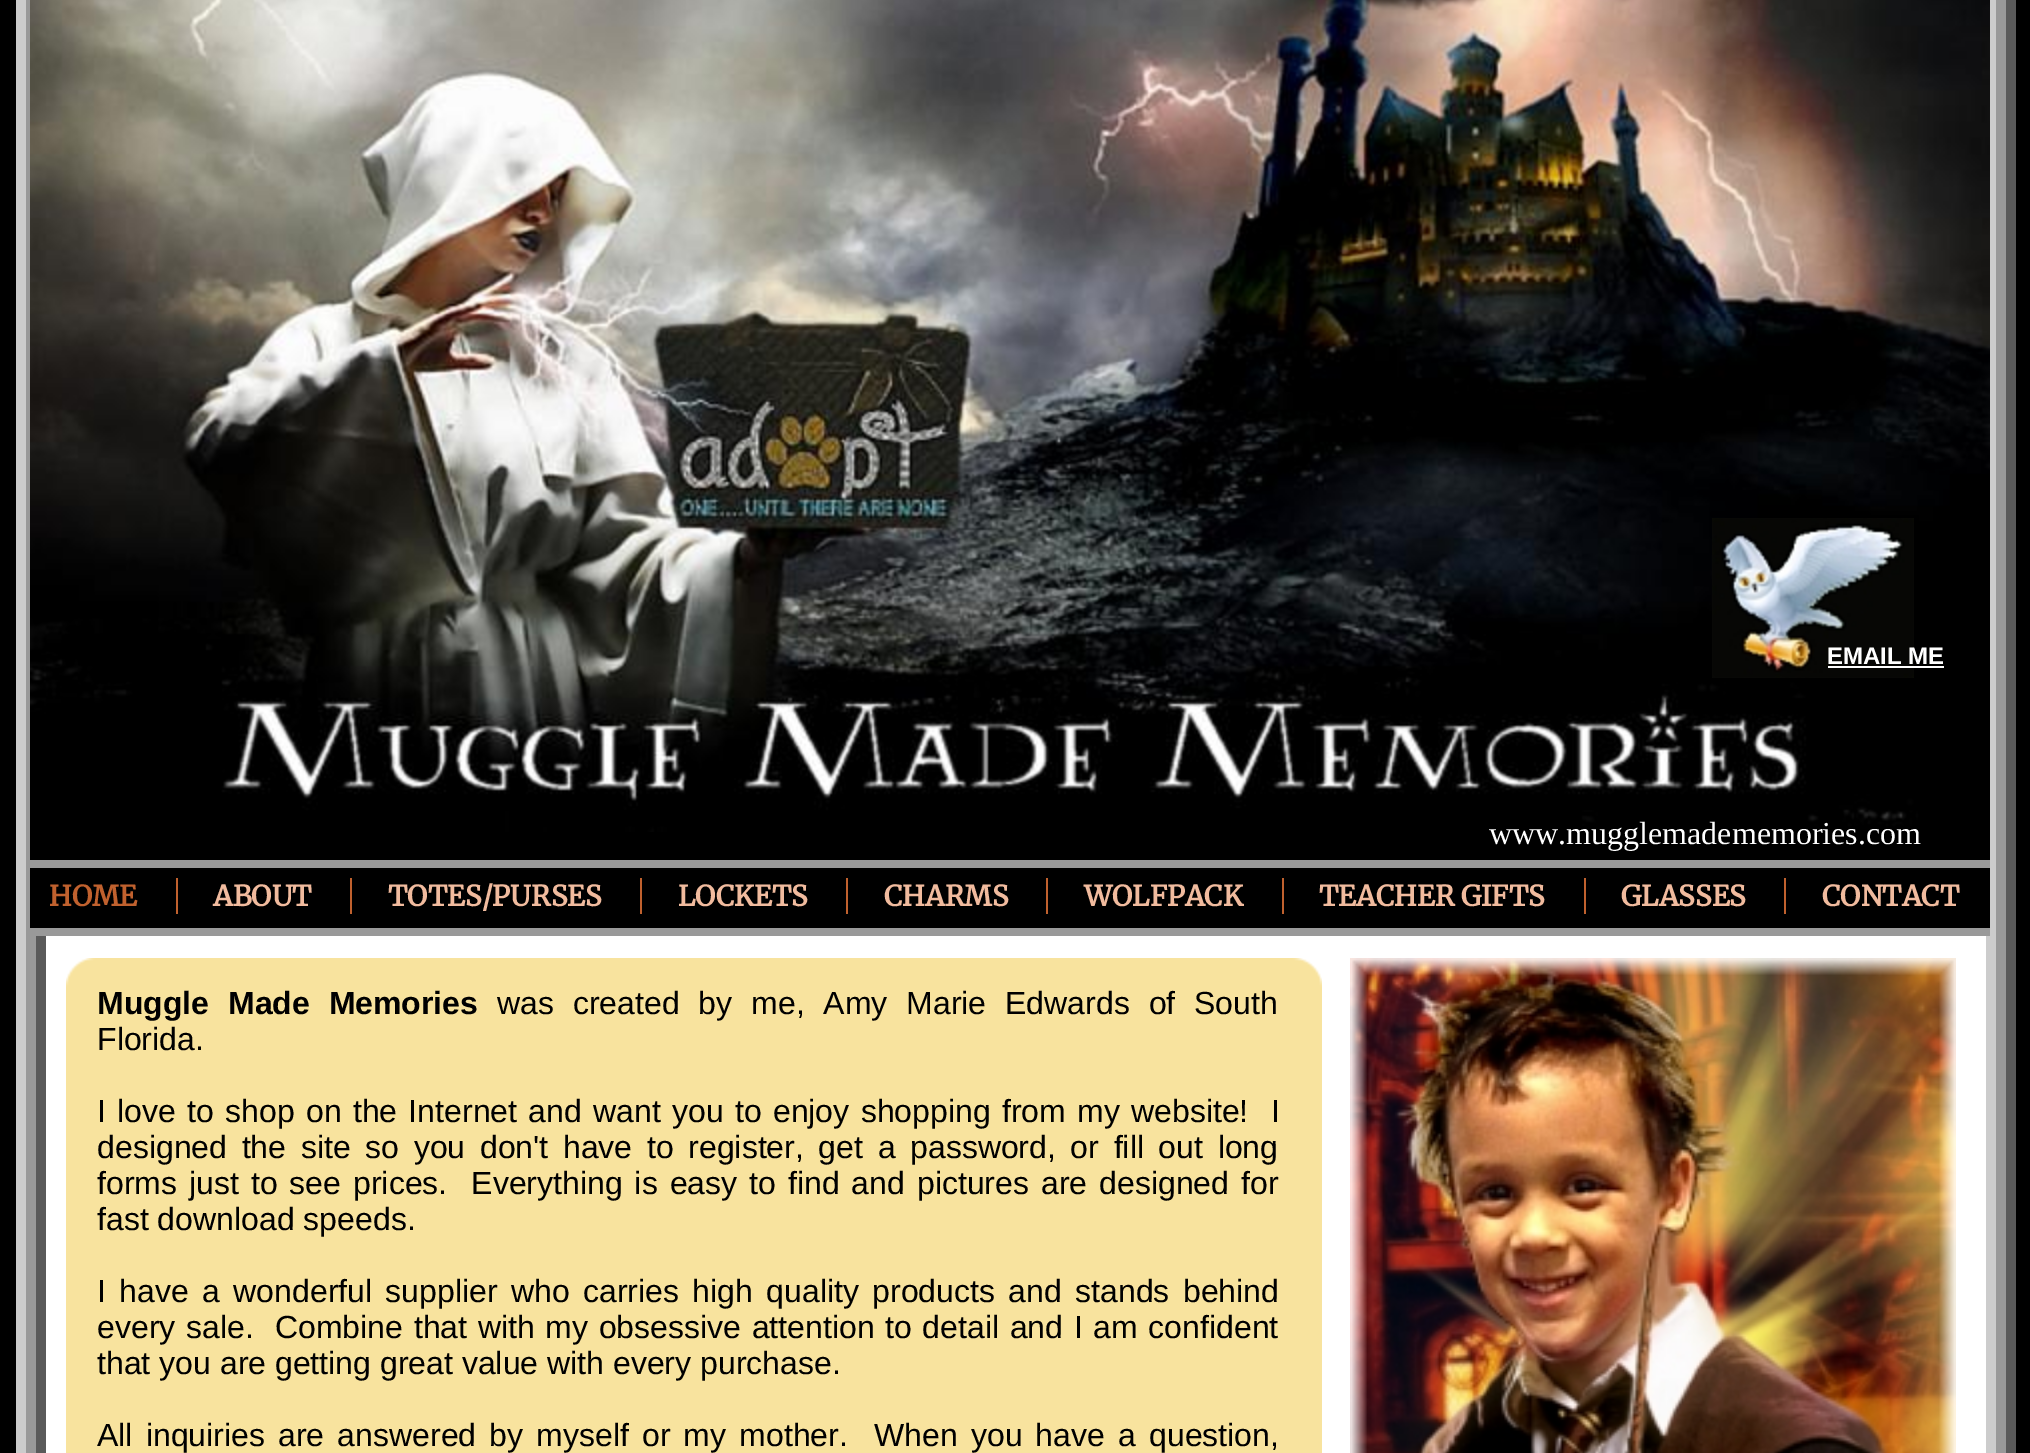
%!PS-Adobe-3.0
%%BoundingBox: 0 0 2030 1453
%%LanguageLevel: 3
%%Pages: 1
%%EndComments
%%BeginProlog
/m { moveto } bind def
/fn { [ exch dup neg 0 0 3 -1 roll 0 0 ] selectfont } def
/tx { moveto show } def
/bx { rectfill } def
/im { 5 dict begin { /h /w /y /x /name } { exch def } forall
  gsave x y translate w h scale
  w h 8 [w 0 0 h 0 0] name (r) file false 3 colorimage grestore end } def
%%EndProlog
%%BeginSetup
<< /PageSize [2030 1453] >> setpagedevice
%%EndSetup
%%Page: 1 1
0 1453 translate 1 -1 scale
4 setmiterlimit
0 setgray
0 0 2030 1453 bx
0.8 setgray
16 0 10 1453 bx
0.353 setgray
2006 0 10 1453 bx
0.6 setgray
26 0 10 1453 bx
1996 0 10 1453 bx
0.353 setgray
36 936 10 517 bx
1 setgray
46 936 1940 517 bx
0.8 setgray
1986 0 10 1453 bx
(image0.raw) 30 0 1960 832 im
(image1.raw) 1712 518 202 160 im
/LiberationSans-Bold 24 fn
1 setgray
(EMAIL ME) 1827 664 tx
1828 666 116 2 bx
0 setgray
30 832 1960 96 bx
/LiberationSerif-Regular 32 fn
1 setgray
(www.mugglemadememories.com) 1489 844 tx
0.6 setgray
30 860 1960 8 bx
/Merriweather-Bold 28 fn
0.753 0.38 0.18 setrgbcolor
(HOME) 49 906 tx
176 878 2 36 bx
0.945 0.733 0.62 setrgbcolor
(ABOUT) 213 906 tx
0.753 0.38 0.18 setrgbcolor
350 878 2 36 bx
0.945 0.733 0.62 setrgbcolor
(TOTES/PURSES) 388 906 tx
0.753 0.38 0.18 setrgbcolor
640 878 2 36 bx
0.945 0.733 0.62 setrgbcolor
(LOCKETS) 678 906 tx
0.753 0.38 0.18 setrgbcolor
846 878 2 36 bx
0.945 0.733 0.62 setrgbcolor
(CHARMS) 884 906 tx
0.753 0.38 0.18 setrgbcolor
1046 878 2 36 bx
0.945 0.733 0.62 setrgbcolor
(WOLFPACK) 1084 906 tx
0.753 0.38 0.18 setrgbcolor
1282 878 2 36 bx
0.945 0.733 0.62 setrgbcolor
(TEACHER GIFTS) 1319 906 tx
0.753 0.38 0.18 setrgbcolor
1584 878 2 36 bx
0.945 0.733 0.62 setrgbcolor
(GLASSES) 1621 906 tx
0.753 0.38 0.18 setrgbcolor
1784 878 2 36 bx
0.945 0.733 0.62 setrgbcolor
(CONTACT) 1822 906 tx
0.6 setgray
30 928 1960 8 bx
(image2.raw) 66 958 30 30 im
0.973 0.89 0.62 setrgbcolor
96 958 1196 30 bx
(image3.raw) 1292 958 30 30 im
66 988 1256 465 bx
(image4.raw) 1350 958 606 495 im
/LiberationSans-Bold 32 fn
0 setgray
97 1014 m 10 0 32 (Muggle Made Memories) widthshow
/LiberationSans-Regular 32 fn
497 1014 m 10 0 32 (was created by me, Amy Marie Edwards of South) widthshow
(Florida.) 97 1050 tx
97 1122 m 2.4 0 32 (I love to shop on the Internet and want you to enjoy shopping from my website!  I) widthshow
97 1158 m 5.75 0 32 (designed the site so you don't have to register, get a password, or fill out long) widthshow
97 1194 m 3.1 0 32 (forms just to see prices.  Everything is easy to find and pictures are designed for) widthshow
(fast download speeds.) 97 1230 tx
97 1302 m 4.5 0 32 (I have a wonderful supplier who carries high quality products and stands behind) widthshow
97 1338 m 1.8 0 32 (every sale.  Combine that with my obsessive attention to detail and I am confident) widthshow
(that you are getting great value with every purchase.) 97 1374 tx
97 1446 m 4.25 0 32 (All inquiries are answered by myself or my mother.  When you have a question,) widthshow
showpage
%%EOF
